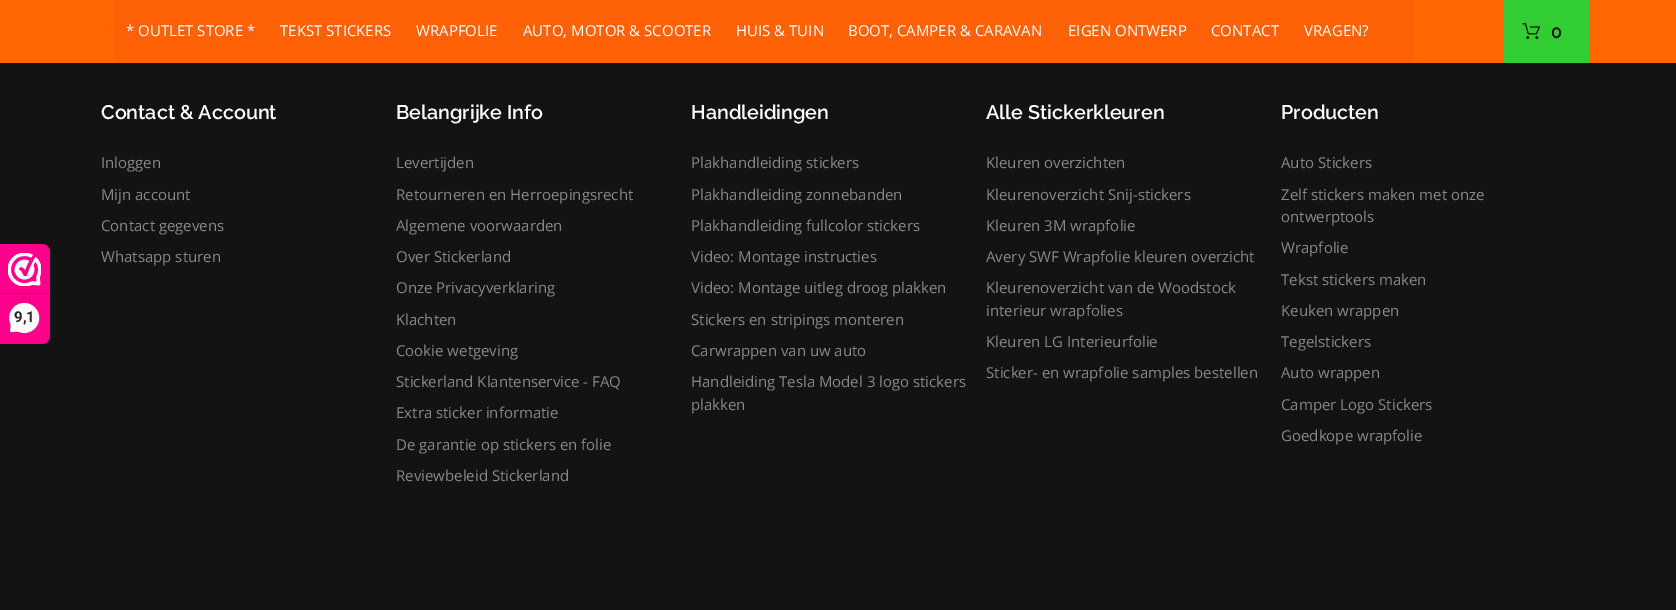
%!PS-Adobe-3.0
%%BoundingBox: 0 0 1676 610
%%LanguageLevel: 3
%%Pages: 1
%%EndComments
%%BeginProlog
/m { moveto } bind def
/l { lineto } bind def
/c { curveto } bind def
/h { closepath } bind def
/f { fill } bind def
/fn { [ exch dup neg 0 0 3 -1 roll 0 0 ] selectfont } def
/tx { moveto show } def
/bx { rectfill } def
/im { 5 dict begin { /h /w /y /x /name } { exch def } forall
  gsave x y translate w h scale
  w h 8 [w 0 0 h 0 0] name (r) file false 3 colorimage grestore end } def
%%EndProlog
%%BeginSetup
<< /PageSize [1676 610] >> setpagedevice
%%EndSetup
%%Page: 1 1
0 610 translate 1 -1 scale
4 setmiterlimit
0.075 setgray
0 0 1676 610 bx
0.996 0 0.549 setrgbcolor
0 244 m 42 244 l 46.5 244 50 247.5 50 252 c 50 336 l 50 340.5 46.5 344 42 344 c 0 344 l h f
(image0.raw) 8 253 33 33 im
0.847 0 0.467 setrgbcolor
0 293 49 1 bx
(image1.raw) 9 302 31 32 im
/Roboto-Bold 15 fn
0.153 0.149 0.149 setrgbcolor
(9,1) 14 322 tx
1 0.404 0.004 setrgbcolor
0 0 1676 63 bx
1 0.38 0.027 setrgbcolor
114 0 1300 63 bx
/OpenSans-Regular 15 fn
1 setgray
(* OUTLET STORE *) 126 36 tx
(TEKST STICKERS) 280 36 tx
(WRAPFOLIE) 416 36 tx
(AUTO, MOTOR & SCOOTER) 523 36 tx
(HUIS & TUIN) 736 36 tx
(BOOT, CAMPER & CARAVAN) 848 36 tx
(EIGEN ONTWERP) 1068 36 tx
(CONTACT) 1211 36 tx
(VRAGEN?) 1304 36 tx
0.196 0.804 0.196 setrgbcolor
1504 0 85 63 bx
(image2.raw) 1522 23 18 16 im
/Raleway-SemiBold 18 fn
0.075 setgray
1551 38 m 1 0 (0) ashow
/Raleway-SemiBold 19.75 fn
1 setgray
(Contact & Account) 101 119 tx
/OpenSans-Regular 15 fn
0.533 setgray
(Inloggen) 101 168 tx
(Mijn account) 101 200 tx
(Contact gegevens) 101 231 tx
(Whatsapp sturen) 101 262 tx
/Raleway-SemiBold 19.75 fn
1 setgray
(Belangrijke Info) 396 119 tx
/OpenSans-Regular 15 fn
0.533 setgray
(Levertijden) 396 168 tx
(Retourneren en Herroepingsrecht) 396 200 tx
(Algemene voorwaarden) 396 231 tx
(Over Stickerland) 396 262 tx
(Onze Privacyverklaring) 396 293 tx
(Klachten) 396 325 tx
(Cookie wetgeving) 396 356 tx
(Stickerland Klantenservice - FAQ) 396 387 tx
(Extra sticker informatie) 396 418 tx
(De garantie op stickers en folie) 396 450 tx
(Reviewbeleid Stickerland) 396 481 tx
/Raleway-SemiBold 19.75 fn
1 setgray
(Handleidingen) 691 119 tx
/OpenSans-Regular 15 fn
0.533 setgray
(Plakhandleiding stickers) 691 168 tx
(Plakhandleiding zonnebanden) 691 200 tx
(Plakhandleiding fullcolor stickers) 691 231 tx
(Video: Montage instructies) 691 262 tx
(Video: Montage uitleg droog plakken) 691 293 tx
(Stickers en stripings monteren) 691 325 tx
(Carwrappen van uw auto) 691 356 tx
(Handleiding Tesla Model 3 logo stickers) 691 387 tx
(plakken) 691 410 tx
/Raleway-SemiBold 19.75 fn
1 setgray
(Alle Stickerkleuren) 986 119 tx
/OpenSans-Regular 15 fn
0.533 setgray
(Kleuren overzichten) 986 168 tx
(Kleurenoverzicht Snij-stickers) 986 200 tx
(Kleuren 3M wrapfolie) 986 231 tx
(Avery SWF Wrapfolie kleuren overzicht) 986 262 tx
(Kleurenoverzicht van de Woodstock) 986 293 tx
(interieur wrapfolies) 986 316 tx
(Kleuren LG Interieurfolie) 986 347 tx
(Sticker- en wrapfolie samples bestellen) 986 378 tx
/Raleway-SemiBold 19.75 fn
1 setgray
(Producten) 1281 119 tx
/OpenSans-Regular 15 fn
0.533 setgray
(Auto Stickers) 1281 168 tx
(Zelf stickers maken met onze) 1281 200 tx
(ontwerptools) 1281 222 tx
(Wrapfolie) 1281 253 tx
(Tekst stickers maken) 1281 285 tx
(Keuken wrappen) 1281 316 tx
(Tegelstickers) 1281 347 tx
(Auto wrappen) 1281 378 tx
(Camper Logo Stickers) 1281 410 tx
(Goedkope wrapfolie) 1281 441 tx
showpage
%%EOF
